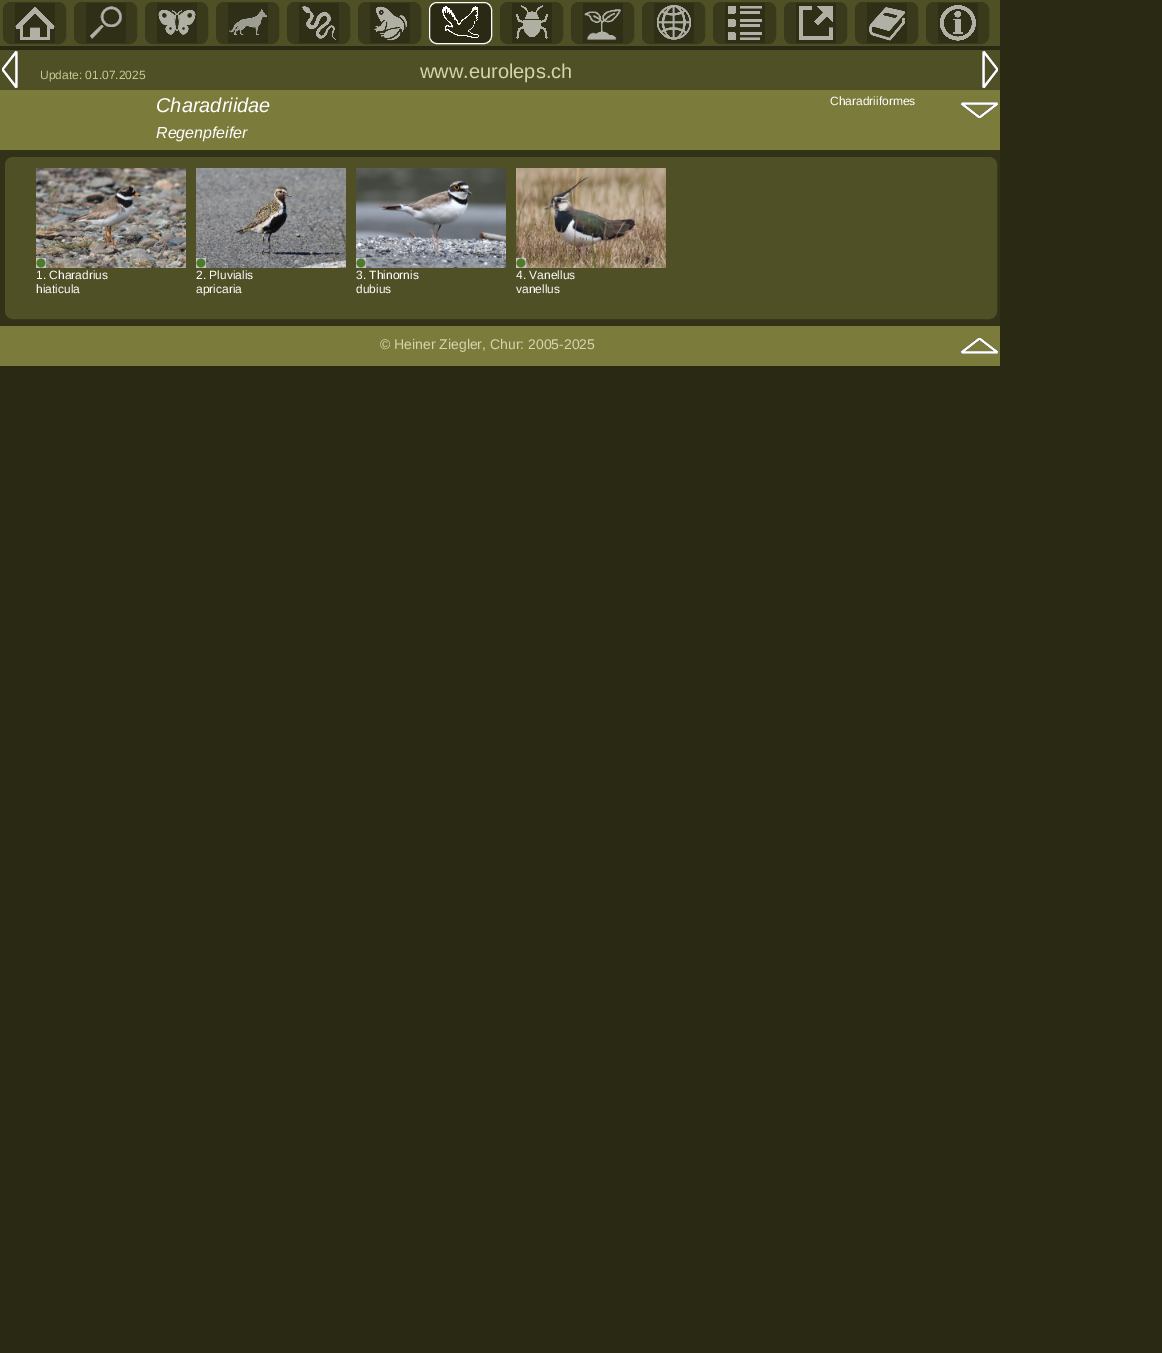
%!PS-Adobe-3.0
%%BoundingBox: 0 0 1162 1353
%%LanguageLevel: 3
%%Pages: 1
%%EndComments
%%BeginProlog
/f { fill } bind def
/S { stroke } bind def
/q { gsave } bind def
/Q { grestore } bind def
/fn { [ exch dup neg 0 0 3 -1 roll 0 0 ] selectfont } def
/tx { moveto show } def
/bx { rectfill } def
/rr { 5 dict begin { /r /h /w /y /x } { exch def } forall
  x r add y moveto x w add y 2 copy h add r arct x w add y h add x 1 index r arct
  x y h add x y r arct x y 2 copy exch w add exch r arct closepath end } def
/im { 5 dict begin { /h /w /y /x /name } { exch def } forall
  gsave x y translate w h scale
  w h 8 [w 0 0 h 0 0] name (r) file false 3 colorimage grestore end } def
%%EndProlog
%%BeginSetup
<< /PageSize [1162 1353] >> setpagedevice
%%EndSetup
%%Page: 1 1
0 1353 translate 1 -1 scale
4 setmiterlimit
0.161 0.161 0.078 setrgbcolor
0 0 1162 1353 bx
0.314 0.314 0.153 setrgbcolor
0 0 1000 46 bx
0.224 0.224 0.11 setrgbcolor
3.5 2.5 62 41 7.5 rr q f Q
S
(image0.raw) 15 3 40 40 im
74.5 2.5 62 41 7.5 rr q f Q
S
(image1.raw) 86 3 40 40 im
145.5 2.5 62 41 7.5 rr q f Q
S
(image2.raw) 157 3 40 40 im
216.5 2.5 62 41 7.5 rr q f Q
S
(image3.raw) 228 3 40 40 im
287.5 2.5 62 41 7.5 rr q f Q
S
(image4.raw) 299 3 40 40 im
358.5 2.5 62 41 7.5 rr q f Q
S
(image5.raw) 370 3 40 40 im
0.161 0.161 0.078 setrgbcolor
429.5 2.5 62 41 7.5 rr q f Q
1 setgray
S
(image6.raw) 442 6 37 32 im
0.224 0.224 0.11 setrgbcolor
500.5 2.5 62 41 7.5 rr q f Q
S
(image7.raw) 512 3 40 40 im
571.5 2.5 62 41 7.5 rr q f Q
S
(image8.raw) 583 3 40 40 im
642.5 2.5 62 41 7.5 rr q f Q
S
(image9.raw) 654 3 40 40 im
713.5 2.5 62 41 7.5 rr q f Q
S
(image10.raw) 725 3 40 40 im
784.5 2.5 62 41 7.5 rr q f Q
S
(image11.raw) 796 3 40 40 im
855.5 2.5 62 41 7.5 rr q f Q
S
(image12.raw) 867 3 40 40 im
926.5 2.5 62 41 7.5 rr q f Q
S
(image13.raw) 938 3 40 40 im
0.314 0.314 0.153 setrgbcolor
0 50 1000 40 bx
(image14.raw) 2 51 16 37 im
/LiberationSans-Regular 12 fn
0.788 0.788 0.58 setrgbcolor
(Update: 01.07.2025) 40 79 tx
/LiberationSans-Regular 20 fn
0.835 0.835 0.678 setrgbcolor
(www.euroleps.ch) 420 78 tx
(image15.raw) 982 51 16 37 im
0.482 0.482 0.235 setrgbcolor
0 90 1000 60 bx
/LiberationSans-Italic 20 fn
1 setgray
(Charadriidae) 156 112 tx
/LiberationSans-Regular 12 fn
(Charadriiformes) 830 105 tx
(image16.raw) 961 102 37 16 im
/LiberationSans-Italic 16 fn
(Regenpfeifer) 156 138 tx
0.196 0.196 0.094 setrgbcolor
0 150 1000 176 bx
0.314 0.314 0.153 setrgbcolor
5.5 157.5 991 161 7.5 rr q f Q
S
(image17.raw) 36 168 150 100 im
(image18.raw) 36 258 10 10 im
/LiberationSans-Regular 12 fn
1 setgray
(1. Charadrius) 36 279 tx
(hiaticula) 36 293 tx
(image19.raw) 196 168 150 100 im
(image18.raw) 196 258 10 10 im
(2. Pluvialis) 196 279 tx
(apricaria) 196 293 tx
(image20.raw) 356 168 150 100 im
(image18.raw) 356 258 10 10 im
(3. Thinornis) 356 279 tx
(dubius) 356 293 tx
(image21.raw) 516 168 150 100 im
(image18.raw) 516 258 10 10 im
(4. Vanellus) 516 279 tx
(vanellus) 516 293 tx
0.482 0.482 0.235 setrgbcolor
0 326 1000 40 bx
/LiberationSans-Regular 14 fn
0.835 0.835 0.678 setrgbcolor
(© Heiner Ziegler, Chur: 2005-2025) 380 349 tx
(image22.raw) 961 338 37 16 im
showpage
%%EOF
